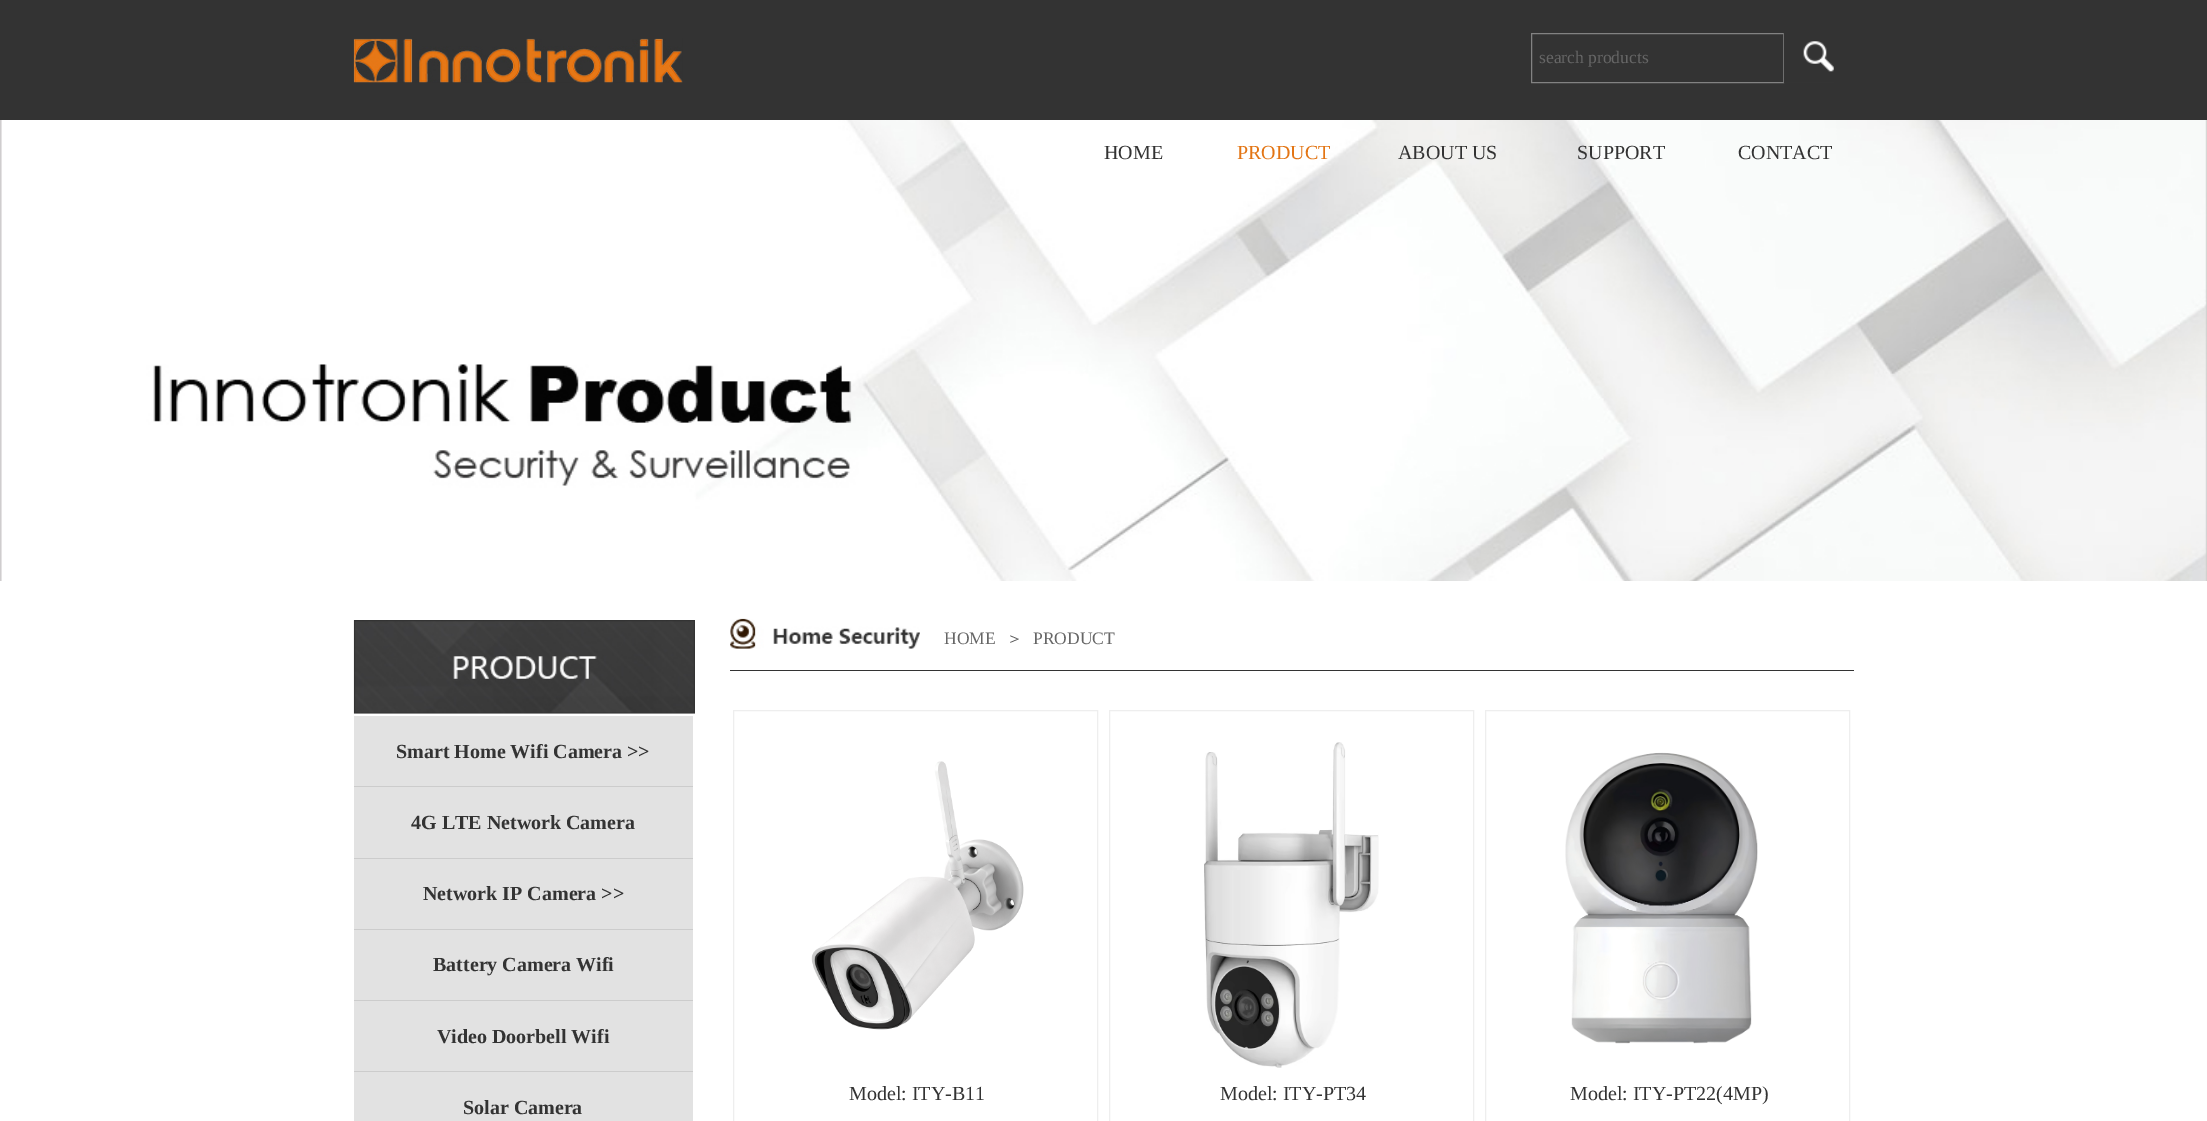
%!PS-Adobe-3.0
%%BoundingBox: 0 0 2207 1121
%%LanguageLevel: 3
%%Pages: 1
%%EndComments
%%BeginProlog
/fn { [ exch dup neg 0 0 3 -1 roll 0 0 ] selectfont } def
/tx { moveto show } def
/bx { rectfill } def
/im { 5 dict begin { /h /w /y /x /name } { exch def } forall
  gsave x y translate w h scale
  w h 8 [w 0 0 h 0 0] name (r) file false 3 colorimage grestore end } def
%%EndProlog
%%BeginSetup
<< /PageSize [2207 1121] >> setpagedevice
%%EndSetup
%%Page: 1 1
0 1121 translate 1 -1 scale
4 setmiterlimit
1 setgray
0 0 2207 1121 bx
0.2 setgray
0 0 2207 120 bx
(image0.raw) 353 38 330 45 im
0.51 setgray
1531.5 33.5 252 49 rectstroke
/LiberationSerif-Regular 17.5 fn
0.4 setgray
(search products) 1539 63 tx
(image1.raw) 1783 33 51 50 im
(image2.raw) 0 120 2207 461 im
/LiberationSerif-Regular 20 fn
0.2 setgray
(HOME) 1104 159 tx
0.89 0.459 0.078 setrgbcolor
(PRODUCT) 1237 159 tx
0.2 setgray
(ABOUT US) 1398 159 tx
(SUPPORT) 1577 159 tx
(CONTACT) 1738 159 tx
(image3.raw) 353 620 342 94 im
(image4.raw) 730 618 190 31 im
/LiberationSerif-Regular 17.5 fn
0.4 setgray
(HOME) 944 644 tx
/WenQuanYiZenHei-Medium 17 fn
0.353 setgray
(＞) 1006 644 tx
/LiberationSerif-Regular 17.5 fn
0.4 setgray
(PRODUCT) 1033 644 tx
0.2 setgray
730 670 1124 1 bx
0.886 setgray
354 716 339 142 bx
0.8 setgray
354 786 339 1 bx
/LiberationSerif-Bold 20 fn
0.2 setgray
(Smart Home Wifi Camera >>) 396 758 tx
0.8 setgray
354 858 339 1 bx
0.2 setgray
(4G LTE Network Camera) 411 829 tx
0.886 setgray
354 859 339 70 bx
0.8 setgray
354 929 339 1 bx
0.2 setgray
(Network IP Camera >>) 423 900 tx
0.886 setgray
354 930 339 70 bx
0.8 setgray
354 1000 339 1 bx
0.2 setgray
(Battery Camera Wifi) 433 971 tx
0.886 setgray
354 1001 339 120 bx
0.8 setgray
354 1071 339 1 bx
0.2 setgray
(Video Doorbell Wifi) 437 1043 tx
(Solar Camera) 463 1114 tx
0.933 setgray
733.5 710.5 364 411 rectstroke
(image5.raw) 811 761 213 269 im
/LiberationSerif-Regular 20 fn
0.2 setgray
(Model: ITY-B11) 849 1100 tx
0.933 setgray
1109.5 710.5 364 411 rectstroke
(image6.raw) 1204 742 175 326 im
0.2 setgray
(Model: ITY-PT34) 1220 1100 tx
0.933 setgray
1485.5 710.5 364 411 rectstroke
(image7.raw) 1565 752 193 292 im
0.2 setgray
(Model: ITY-PT22\(4MP\)) 1570 1100 tx
showpage
%%EOF
